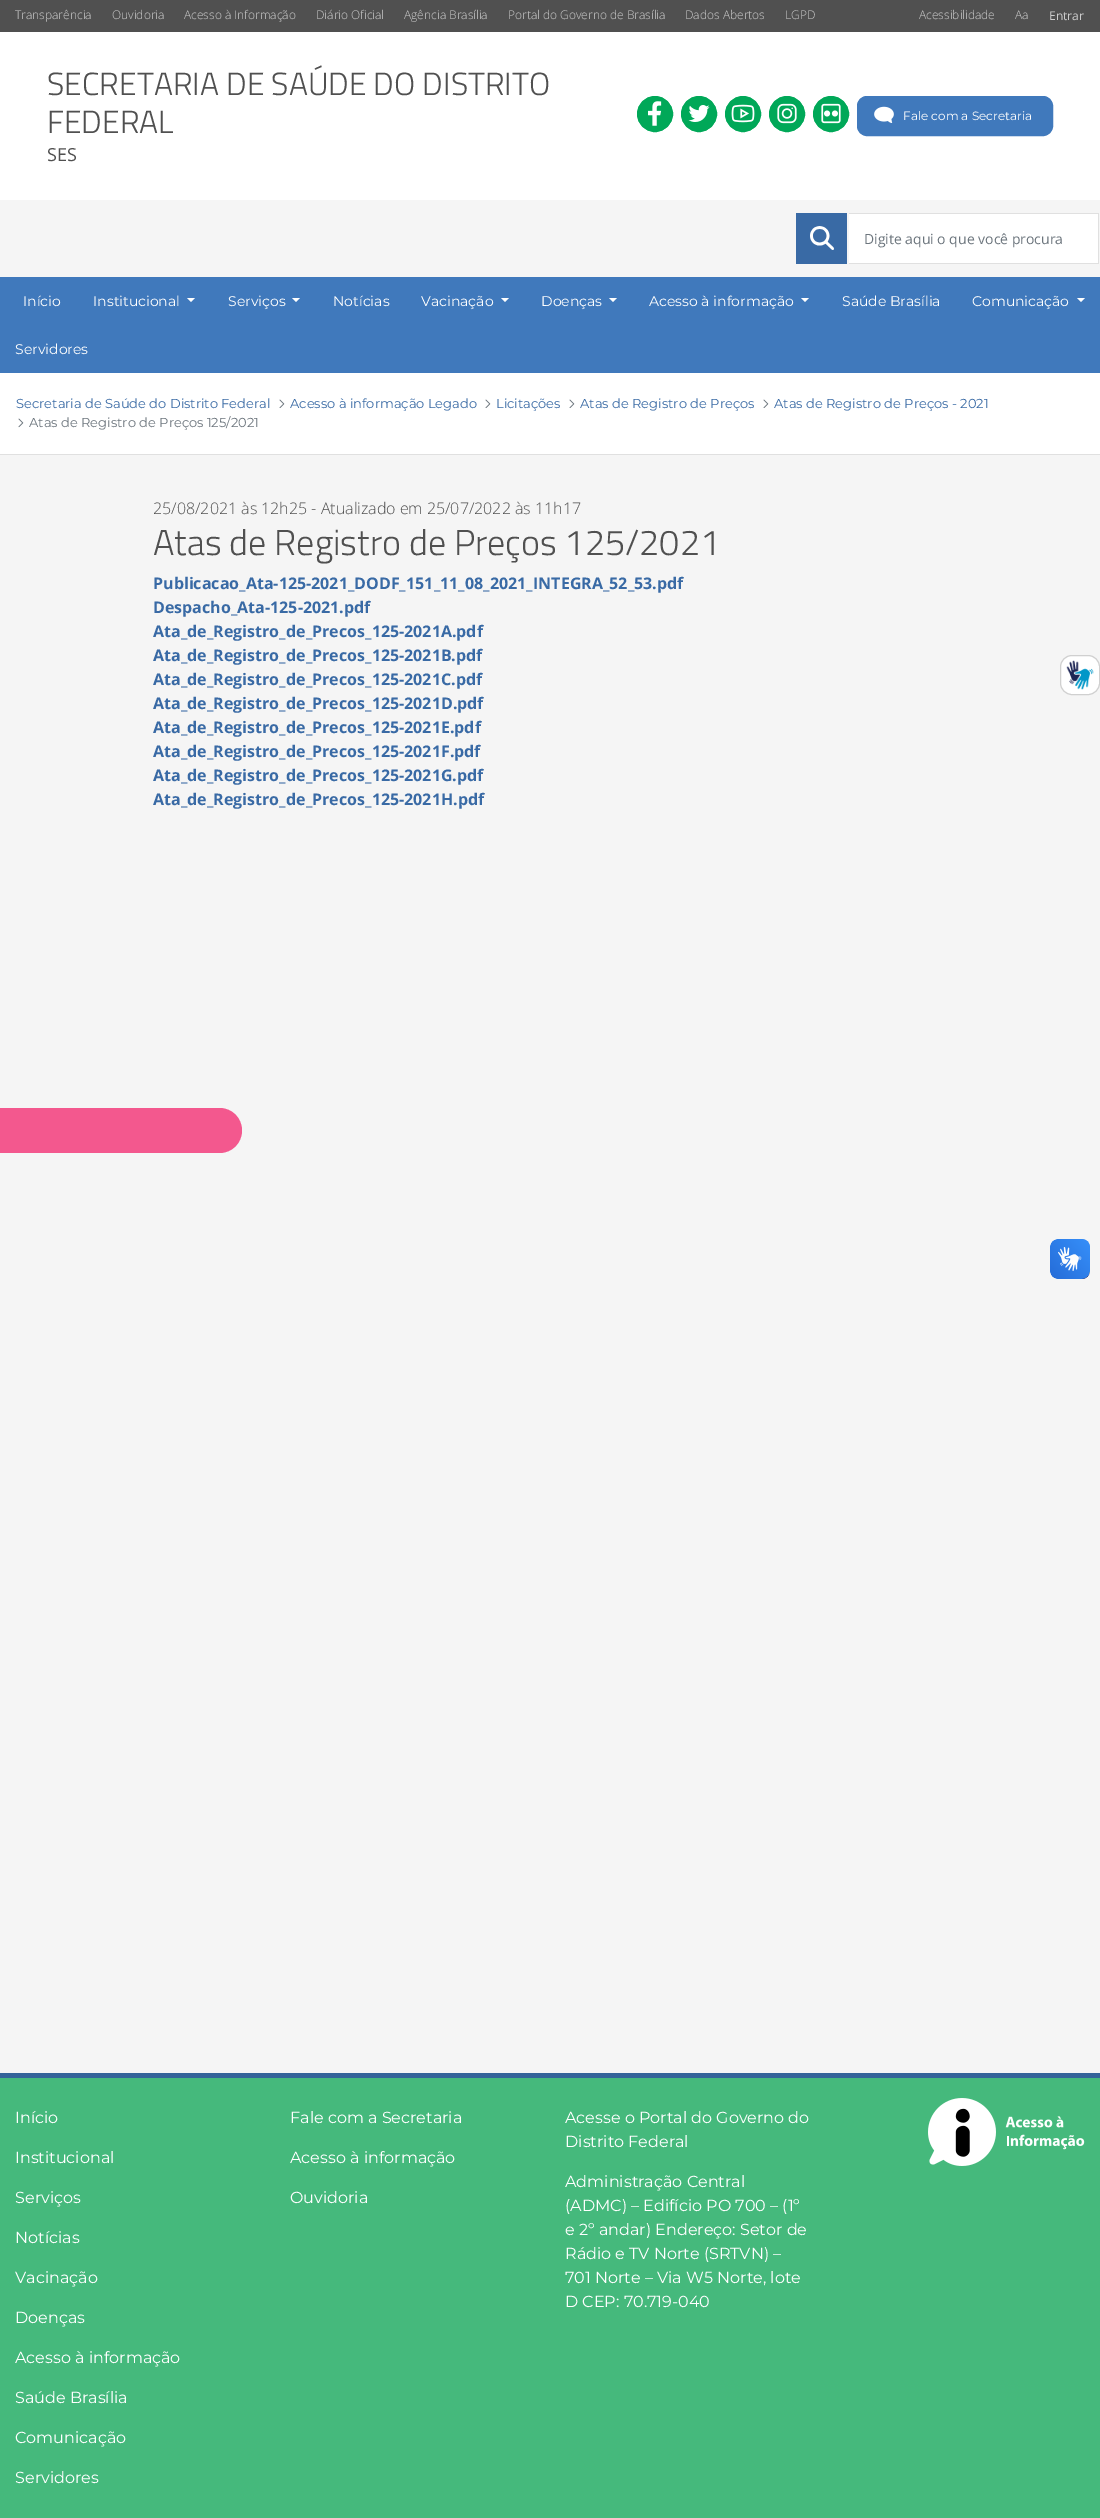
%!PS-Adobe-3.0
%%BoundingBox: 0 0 1100 2518
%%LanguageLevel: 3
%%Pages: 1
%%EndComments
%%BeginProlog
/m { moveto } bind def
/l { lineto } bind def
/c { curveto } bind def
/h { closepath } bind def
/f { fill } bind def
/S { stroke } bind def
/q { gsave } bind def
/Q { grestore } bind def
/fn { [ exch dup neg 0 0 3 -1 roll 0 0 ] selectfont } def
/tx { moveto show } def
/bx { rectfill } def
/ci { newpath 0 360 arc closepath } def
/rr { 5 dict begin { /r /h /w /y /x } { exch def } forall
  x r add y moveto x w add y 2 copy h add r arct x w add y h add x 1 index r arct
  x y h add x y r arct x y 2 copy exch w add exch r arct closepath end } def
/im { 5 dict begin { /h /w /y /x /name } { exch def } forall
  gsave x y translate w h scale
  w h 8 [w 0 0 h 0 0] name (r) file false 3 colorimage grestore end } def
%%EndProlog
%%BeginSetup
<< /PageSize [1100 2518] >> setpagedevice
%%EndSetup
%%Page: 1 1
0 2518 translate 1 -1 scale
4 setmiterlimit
0.961 setgray
0 0 1100 2518 bx
0.314 setgray
0 0 1100 32 bx
/OpenSans-Light 12 fn
0.8 setgray
(Transparência) 15 19 tx
(Ouvidoria) 112 19 tx
(Acesso à Informação) 184 19 tx
(Diário Oficial) 316 19 tx
(Agência Brasília) 404 19 tx
(Portal do Governo de Brasília) 508 19 tx
(Dados Abertos) 685 19 tx
(LGPD) 785 19 tx
(Acessibilidade) 919 19 tx
(Aa) 1015 19 tx
/OpenSans-Regular 12 fn
(Entrar) 1049 20 tx
1 setgray
0 32 1100 168 bx
/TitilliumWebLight-Light 32 fn
0.314 setgray
(SECRETARIA DE SAÚDE DO DISTRITO) 47 95 tx
(FEDERAL) 47 133 tx
/OpenSans-Regular 18 fn
(SES) 47 161 tx
0 0.659 0.345 setrgbcolor
655 114 17.5 ci q f Q
S
(image0.raw) 648 101 14 25 im
699 114 17.5 ci q f Q
S
(image1.raw) 688 105 22 17 im
743 114 17.5 ci q f Q
S
(image2.raw) 731 104 24 19 im
787 114 17.5 ci q f Q
S
(image3.raw) 777 103 20 21 im
831 114 17.5 ci q f Q
S
(image4.raw) 821 103 20 21 im
0.251 0.475 0.737 setrgbcolor
857.5 96.5 195 39 9.5 rr q f Q
S
(image5.raw) 874 106 20 17 im
/Montserrat-Thin 12 fn
1 setgray
(Fale com a Secretaria) 903 120 tx
0.224 0.416 0.647 setrgbcolor
796 213 51 51 bx
(image6.raw) 810 226 24 24 im
1 setgray
849 214 249 49 bx
0.878 setgray
849 213 250 1 bx
1098 213 1 51 bx
849 263 250 1 bx
/OpenSans-Regular 14 fn
0.424 0.459 0.49 setrgbcolor
(Digite aqui o que você procura) 864 244 tx
0.251 0.475 0.737 setrgbcolor
0 277 1100 96 bx
/Montserrat-Thin 14 fn
1 setgray
(Início) 23 306 tx
(Institucional) 93 306 tx
187 298 m 195 298 l 191 302 l h f
(Serviços) 228 306 tx
292 298 m 300 298 l 296 302 l h f
(Notícias) 333 306 tx
(Vacinação) 421 306 tx
501 298 m 509 298 l 505 302 l h f
(Doenças) 541 306 tx
609 298 m 617 298 l 613 302 l h f
(Acesso à informação) 649 306 tx
801 298 m 809 298 l 805 302 l h f
(Saúde Brasília) 842 306 tx
(Comunicação) 972 306 tx
1077 298 m 1085 298 l 1081 302 l h f
(Servidores) 15 354 tx
0 373 1100 81 bx
0.878 setgray
0 454 1100 1 bx
/Montserrat-Thin 13 fn
0.224 0.416 0.647 setrgbcolor
(Secretaria de Saúde do Distrito Federal) 16 408 tx
(image7.raw) 279 399 6 9 im
(Acesso à informação Legado) 290 408 tx
(image7.raw) 485 399 6 9 im
(Licitações) 496 408 tx
(image7.raw) 569 399 6 9 im
(Atas de Registro de Preços) 580 408 tx
(image7.raw) 763 399 6 9 im
(Atas de Registro de Preços - 2021) 774 408 tx
(image8.raw) 18 418 6 10 im
0.424 0.459 0.49 setrgbcolor
(Atas de Registro de Preços 125/2021) 29 427 tx
/OpenSans-Light 16 fn
0.314 setgray
(25/08/2021 às 12h25 - Atualizado em 25/07/2022 às 11h17) 153 514 tx
/TitilliumWebLight-Light 36 fn
(Atas de Registro de Preços 125/2021) 153 555 tx
/OpenSans-Bold 16 fn
0.224 0.416 0.647 setrgbcolor
(Publicacao_Ata-125-2021_DODF_151_11_08_2021_INTEGRA_52_53.pdf) 153 589 tx
(Despacho_Ata-125-2021.pdf) 153 613 tx
(Ata_de_Registro_de_Precos_125-2021A.pdf) 153 637 tx
(Ata_de_Registro_de_Precos_125-2021B.pdf) 153 661 tx
(Ata_de_Registro_de_Precos_125-2021C.pdf) 153 685 tx
(Ata_de_Registro_de_Precos_125-2021D.pdf) 153 709 tx
(Ata_de_Registro_de_Precos_125-2021E.pdf) 153 733 tx
(Ata_de_Registro_de_Precos_125-2021F.pdf) 153 757 tx
(Ata_de_Registro_de_Precos_125-2021G.pdf) 153 781 tx
(Ata_de_Registro_de_Precos_125-2021H.pdf) 153 805 tx
0.271 0.725 0.486 setrgbcolor
0 2078 1100 440 bx
0.204 0.388 0.6 setrgbcolor
0 2073 1100 5 bx
/Montserrat-Thin 16 fn
1 setgray
(Início) 15 2123 tx
(Institucional) 15 2163 tx
(Serviços) 15 2203 tx
(Notícias) 15 2243 tx
(Vacinação) 15 2283 tx
(Doenças) 15 2323 tx
(Acesso à informação) 15 2363 tx
(Saúde Brasília) 15 2403 tx
(Comunicação) 15 2443 tx
(Servidores) 15 2483 tx
(Fale com a Secretaria) 290 2123 tx
(Acesso à informação) 290 2163 tx
(Ouvidoria) 290 2203 tx
(Acesse o Portal do Governo do) 565 2123 tx
(Distrito Federal) 565 2147 tx
(Administração Central) 565 2187 tx
(\(ADMC\) – Edifício PO 700 – \(1º) 565 2211 tx
(e 2º andar\) Endereço: Setor de) 565 2235 tx
(Rádio e TV Norte \(SRTVN\) –) 565 2259 tx
(701 Norte – Via W5 Norte, lote) 565 2283 tx
(D CEP: 70.719-040) 565 2307 tx
(image9.raw) 928 2098 157 68 im
1060.5 655.5 39 39 11.5 rr q f Q
0.816 setgray
S
(image10.raw) 1066 660 28 30 im
0.953 0.345 0.557 setrgbcolor
-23 1108 m 219.5 1108 l 232 1108 242 1118 242 1130.5 c 242 1143 232 1153 219.5 1153 c -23 1153 l h f
(image11.raw) 1050 1239 40 40 im
(image12.raw) 1050 1239 40 40 im
showpage
%%EOF
